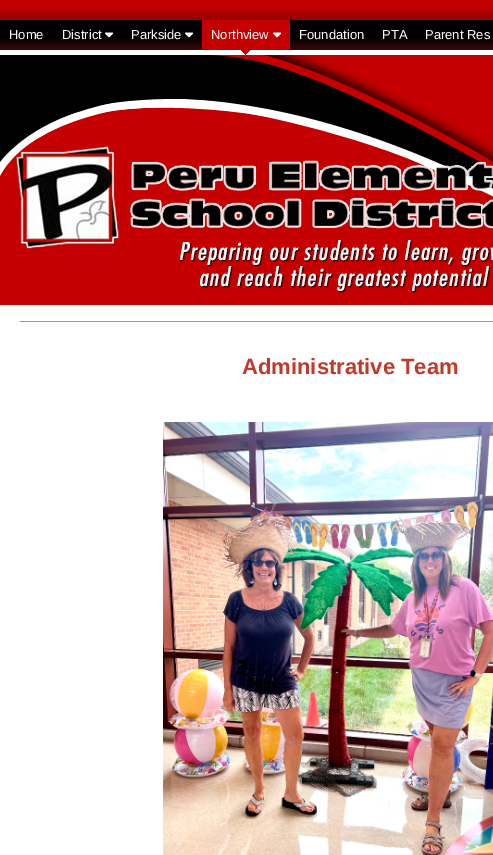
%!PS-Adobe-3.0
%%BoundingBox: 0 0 493 855
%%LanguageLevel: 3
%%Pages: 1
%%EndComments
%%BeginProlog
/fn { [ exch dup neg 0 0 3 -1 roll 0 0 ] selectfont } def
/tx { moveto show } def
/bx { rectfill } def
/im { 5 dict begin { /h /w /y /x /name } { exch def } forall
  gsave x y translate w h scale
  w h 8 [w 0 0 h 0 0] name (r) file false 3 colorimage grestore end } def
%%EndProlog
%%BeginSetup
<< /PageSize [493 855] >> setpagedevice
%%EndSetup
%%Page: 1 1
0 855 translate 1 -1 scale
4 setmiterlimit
1 setgray
0 0 493 855 bx
(image0.raw) 0 0 493 20 im
(image1.raw) 0 6 493 14 im
0 setgray
0 20 493 17 bx
(image2.raw) 0 37 493 18 im
/LiberationSans-Regular 13 fn
1 setgray
(Home) 9 39 tx
(District) 62 39 tx
(image3.raw) 105 32 9 6 im
(Parkside) 131 39 tx
(image3.raw) 185 32 9 6 im
(image4.raw) 202 20 88 35 im
(Northview) 211 39 tx
(image5.raw) 273 32 9 6 im
(Foundation) 299 39 tx
(PTA) 382 39 tx
(Parent Res) 425 39 tx
0.769 0 0 setrgbcolor
0 293 493 12 bx
(image6.raw) 0 55 493 238 im
0.6 setgray
20 321 473 1 bx
/LiberationSans-Bold 22 fn
0.753 0.224 0.169 setrgbcolor
(Administrative Team) 242 374 tx
(image7.raw) 163 422 330 433 im
showpage
%%EOF
